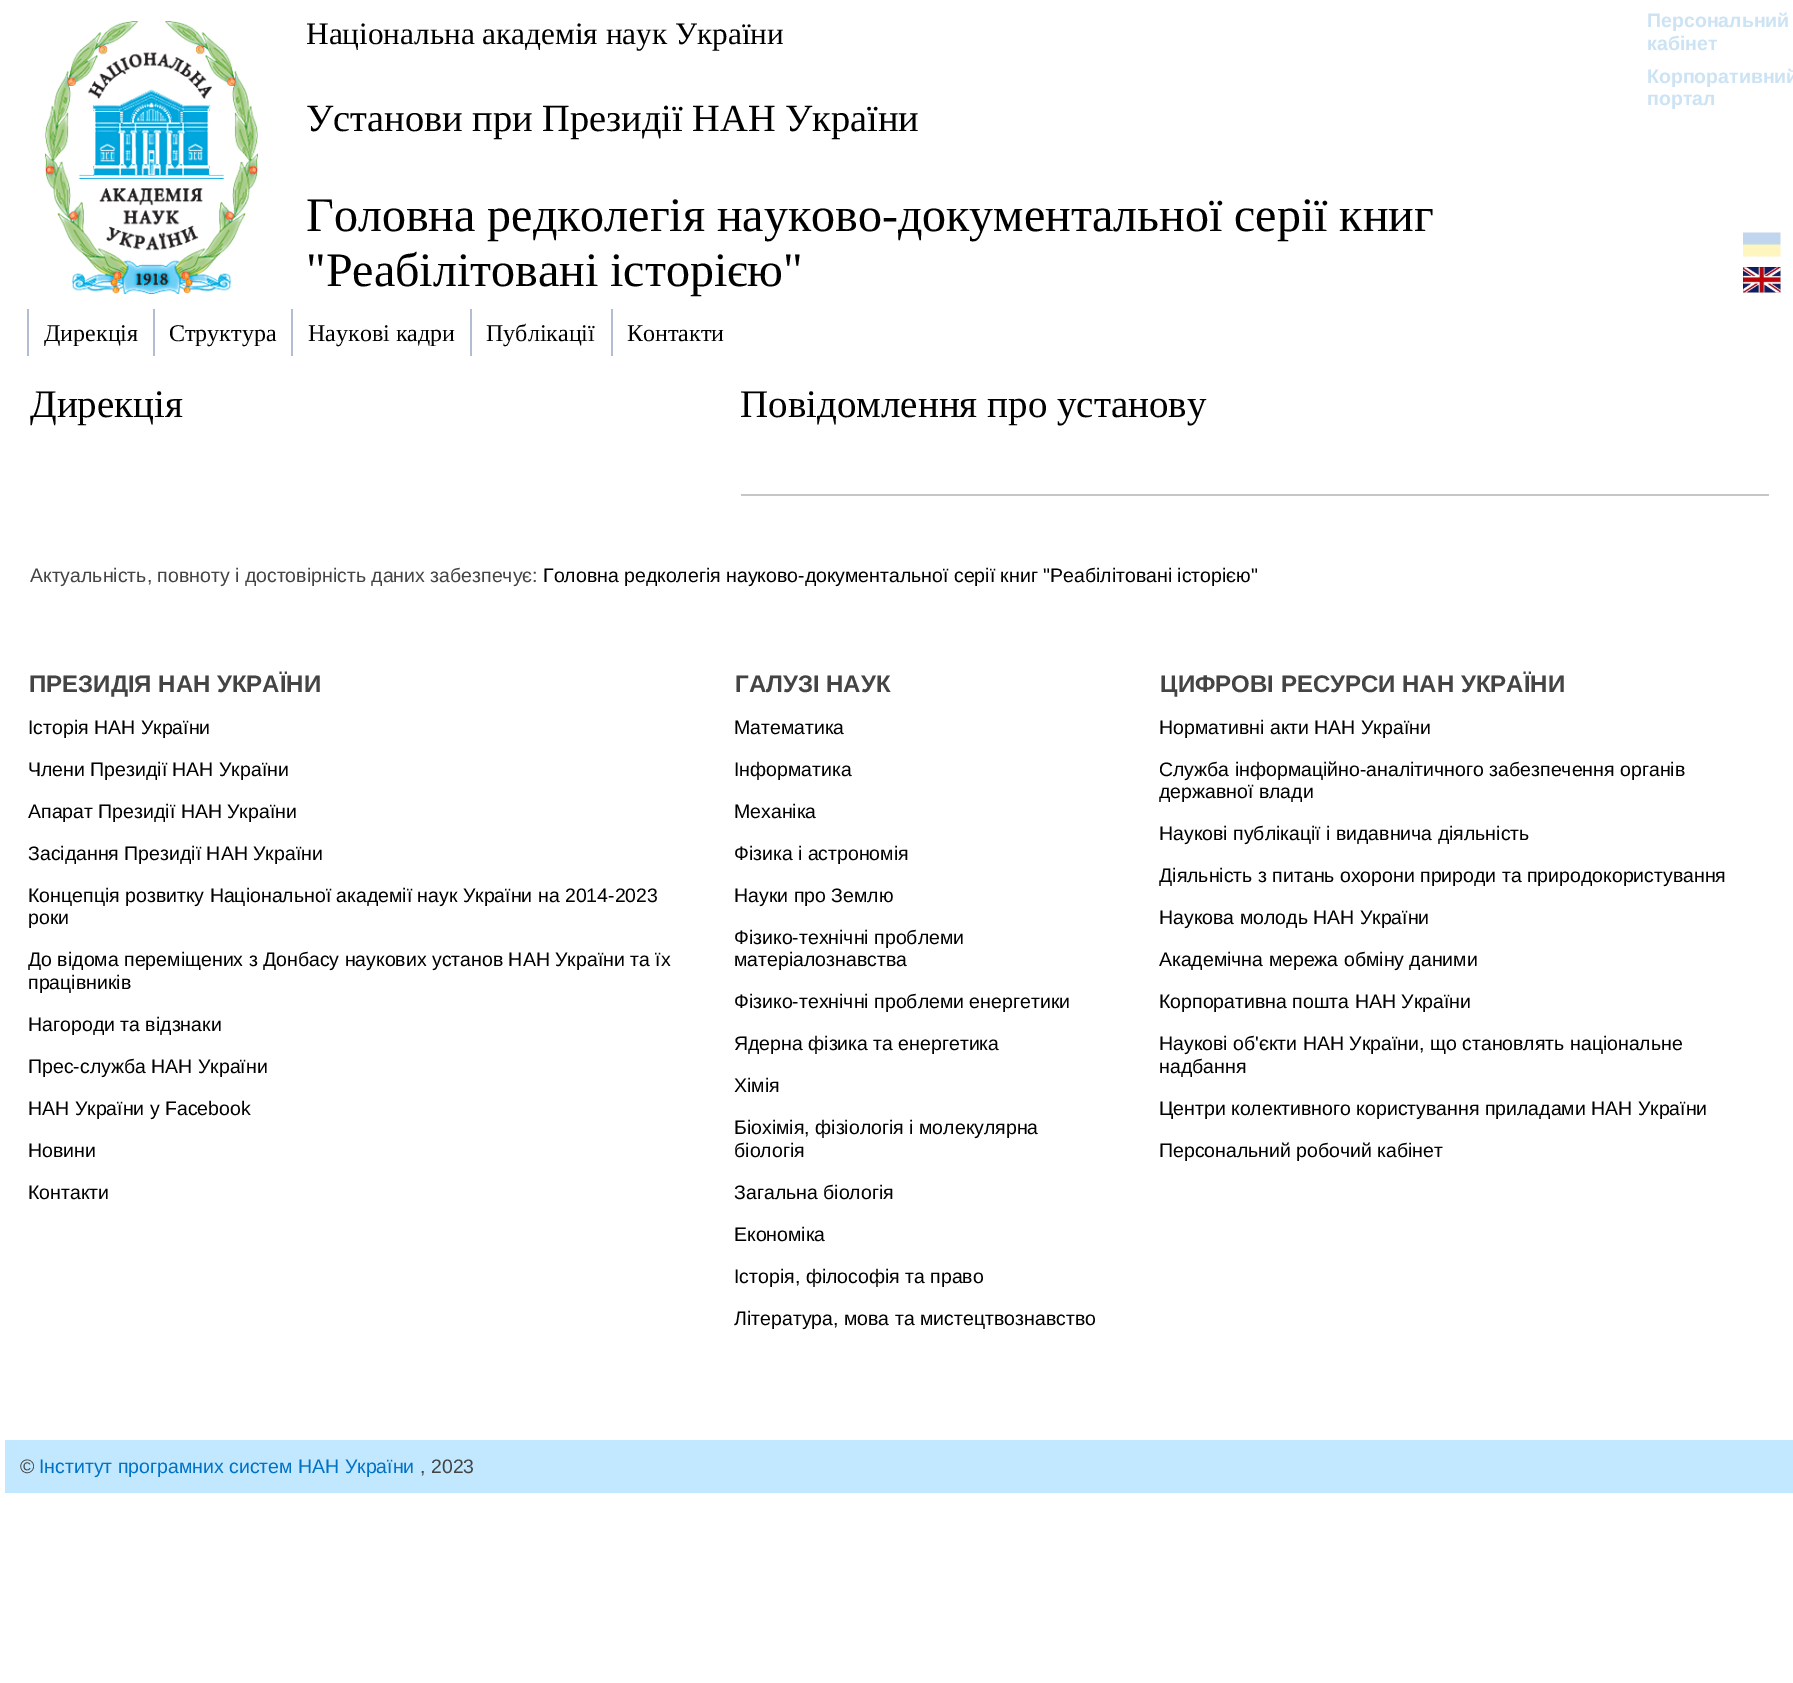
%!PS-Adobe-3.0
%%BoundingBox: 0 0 1793 1683
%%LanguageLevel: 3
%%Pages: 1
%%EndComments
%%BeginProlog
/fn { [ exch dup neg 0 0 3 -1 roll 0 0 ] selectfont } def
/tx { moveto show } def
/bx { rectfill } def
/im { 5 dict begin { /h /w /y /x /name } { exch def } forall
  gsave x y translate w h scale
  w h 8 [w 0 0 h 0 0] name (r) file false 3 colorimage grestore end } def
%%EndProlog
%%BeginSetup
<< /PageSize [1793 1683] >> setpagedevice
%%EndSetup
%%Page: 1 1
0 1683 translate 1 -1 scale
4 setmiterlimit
1 setgray
0 0 1793 1683 bx
(image0.raw) 45 21 213 273 im
/LiberationSerif-Regular 31.25 fn
0 setgray
(Національна академія наук України) 306 44 tx
/LiberationSans-Bold 19.5 fn
0.8 0.89 0.957 setrgbcolor
(Персональний) 1647 27 tx
(кабінет) 1647 50 tx
(Корпоративний) 1647 83 tx
(портал) 1647 105 tx
/LiberationSerif-Regular 38.4 fn
0 setgray
(Установи при Президії НАН України) 306 131 tx
(image1.raw) 1743 232 38 25 im
(image2.raw) 1743 267 38 26 im
/LiberationSerif-Regular 48 fn
(Головна редколегія науково-документальної серії книг) 306 231 tx
("Реабілітовані історією") 306 286 tx
0.698 0.741 0.827 setrgbcolor
27 309 2 47 bx
/LiberationSerif-Regular 24 fn
0 setgray
(Дирекція) 44 341 tx
0.698 0.741 0.827 setrgbcolor
153 309 2 47 bx
0 setgray
(Структура) 169 341 tx
0.698 0.741 0.827 setrgbcolor
291 309 2 47 bx
0 setgray
(Наукові кадри) 308 341 tx
0.698 0.741 0.827 setrgbcolor
470 309 2 47 bx
0 setgray
(Публікації) 486 341 tx
0.698 0.741 0.827 setrgbcolor
611 309 2 47 bx
0 setgray
(Контакти) 627 341 tx
/LiberationSerif-Regular 39 fn
(Дирекція) 30 417 tx
(Повідомлення про установу) 740 417 tx
0.776 setgray
741 494 1028 2 bx
/LiberationSans-Regular 19.5 fn
0.267 setgray
(Актуальність, повноту і достовірність даних забезпечує:) 30 582 tx
0 setgray
(Головна редколегія науково-документальної серії книг "Реабілітовані історією") 543 582 tx
/LiberationSans-Bold 24 fn
0.267 setgray
(ПРЕЗИДІЯ НАН УКРАЇНИ) 29 692 tx
/LiberationSans-Regular 19.5 fn
0 setgray
(Історія НАН України) 28 734 tx
(Члени Президії НАН України) 28 776 tx
(Апарат Президії НАН України) 28 818 tx
(Засідання Президії НАН України) 28 860 tx
(Концепція розвитку Національної академії наук України на 2014-2023) 28 902 tx
(роки) 28 924 tx
(До відома переміщених з Донбасу наукових установ НАН України та їх) 28 966 tx
(працівників) 28 989 tx
(Нагороди та відзнаки) 28 1031 tx
(Прес-служба НАН України) 28 1073 tx
(НАН України у Facebook) 28 1115 tx
(Новини) 28 1157 tx
(Контакти) 28 1199 tx
/LiberationSans-Bold 24 fn
0.267 setgray
(ГАЛУЗІ НАУК) 735 692 tx
/LiberationSans-Regular 19.5 fn
0 setgray
(Математика) 734 734 tx
(Інформатика) 734 776 tx
(Механіка) 734 818 tx
(Фізика і астрономія) 734 860 tx
(Науки про Землю) 734 902 tx
(Фізико-технічні проблеми) 734 944 tx
(матеріалознавства) 734 966 tx
(Фізико-технічні проблеми енергетики) 734 1008 tx
(Ядерна фізика та енергетика) 734 1050 tx
(Хімія) 734 1092 tx
(Біохімія, фізіологія і молекулярна) 734 1134 tx
(біологія) 734 1157 tx
(Загальна біологія) 734 1199 tx
(Економіка) 734 1241 tx
(Історія, філософія та право) 734 1283 tx
(Література, мова та мистецтвознавство) 734 1325 tx
/LiberationSans-Bold 24 fn
0.267 setgray
(ЦИФРОВІ РЕСУРСИ НАН УКРАЇНИ) 1160 692 tx
/LiberationSans-Regular 19.5 fn
0 setgray
(Нормативні акти НАН України) 1159 734 tx
(Служба інформаційно-аналітичного забезпечення органів) 1159 776 tx
(державної влади) 1159 798 tx
(Наукові публікації і видавнича діяльність) 1159 840 tx
(Діяльність з питань охорони природи та природокористування) 1159 882 tx
(Наукова молодь НАН України) 1159 924 tx
(Академічна мережа обміну даними) 1159 966 tx
(Корпоративна пошта НАН України) 1159 1008 tx
(Наукові об'єкти НАН України, що становлять національне) 1159 1050 tx
(надбання) 1159 1073 tx
(Центри колективного користування приладами НАН України) 1159 1115 tx
(Персональний робочий кабінет) 1159 1157 tx
0.757 0.91 1 setrgbcolor
5 1440 1788 53 bx
0.267 setgray
(©) 20 1473 tx
0 0.447 0.776 setrgbcolor
(Інститут програмних систем НАН України) 39 1473 tx
0.267 setgray
(, 2023) 420 1473 tx
showpage
%%EOF
